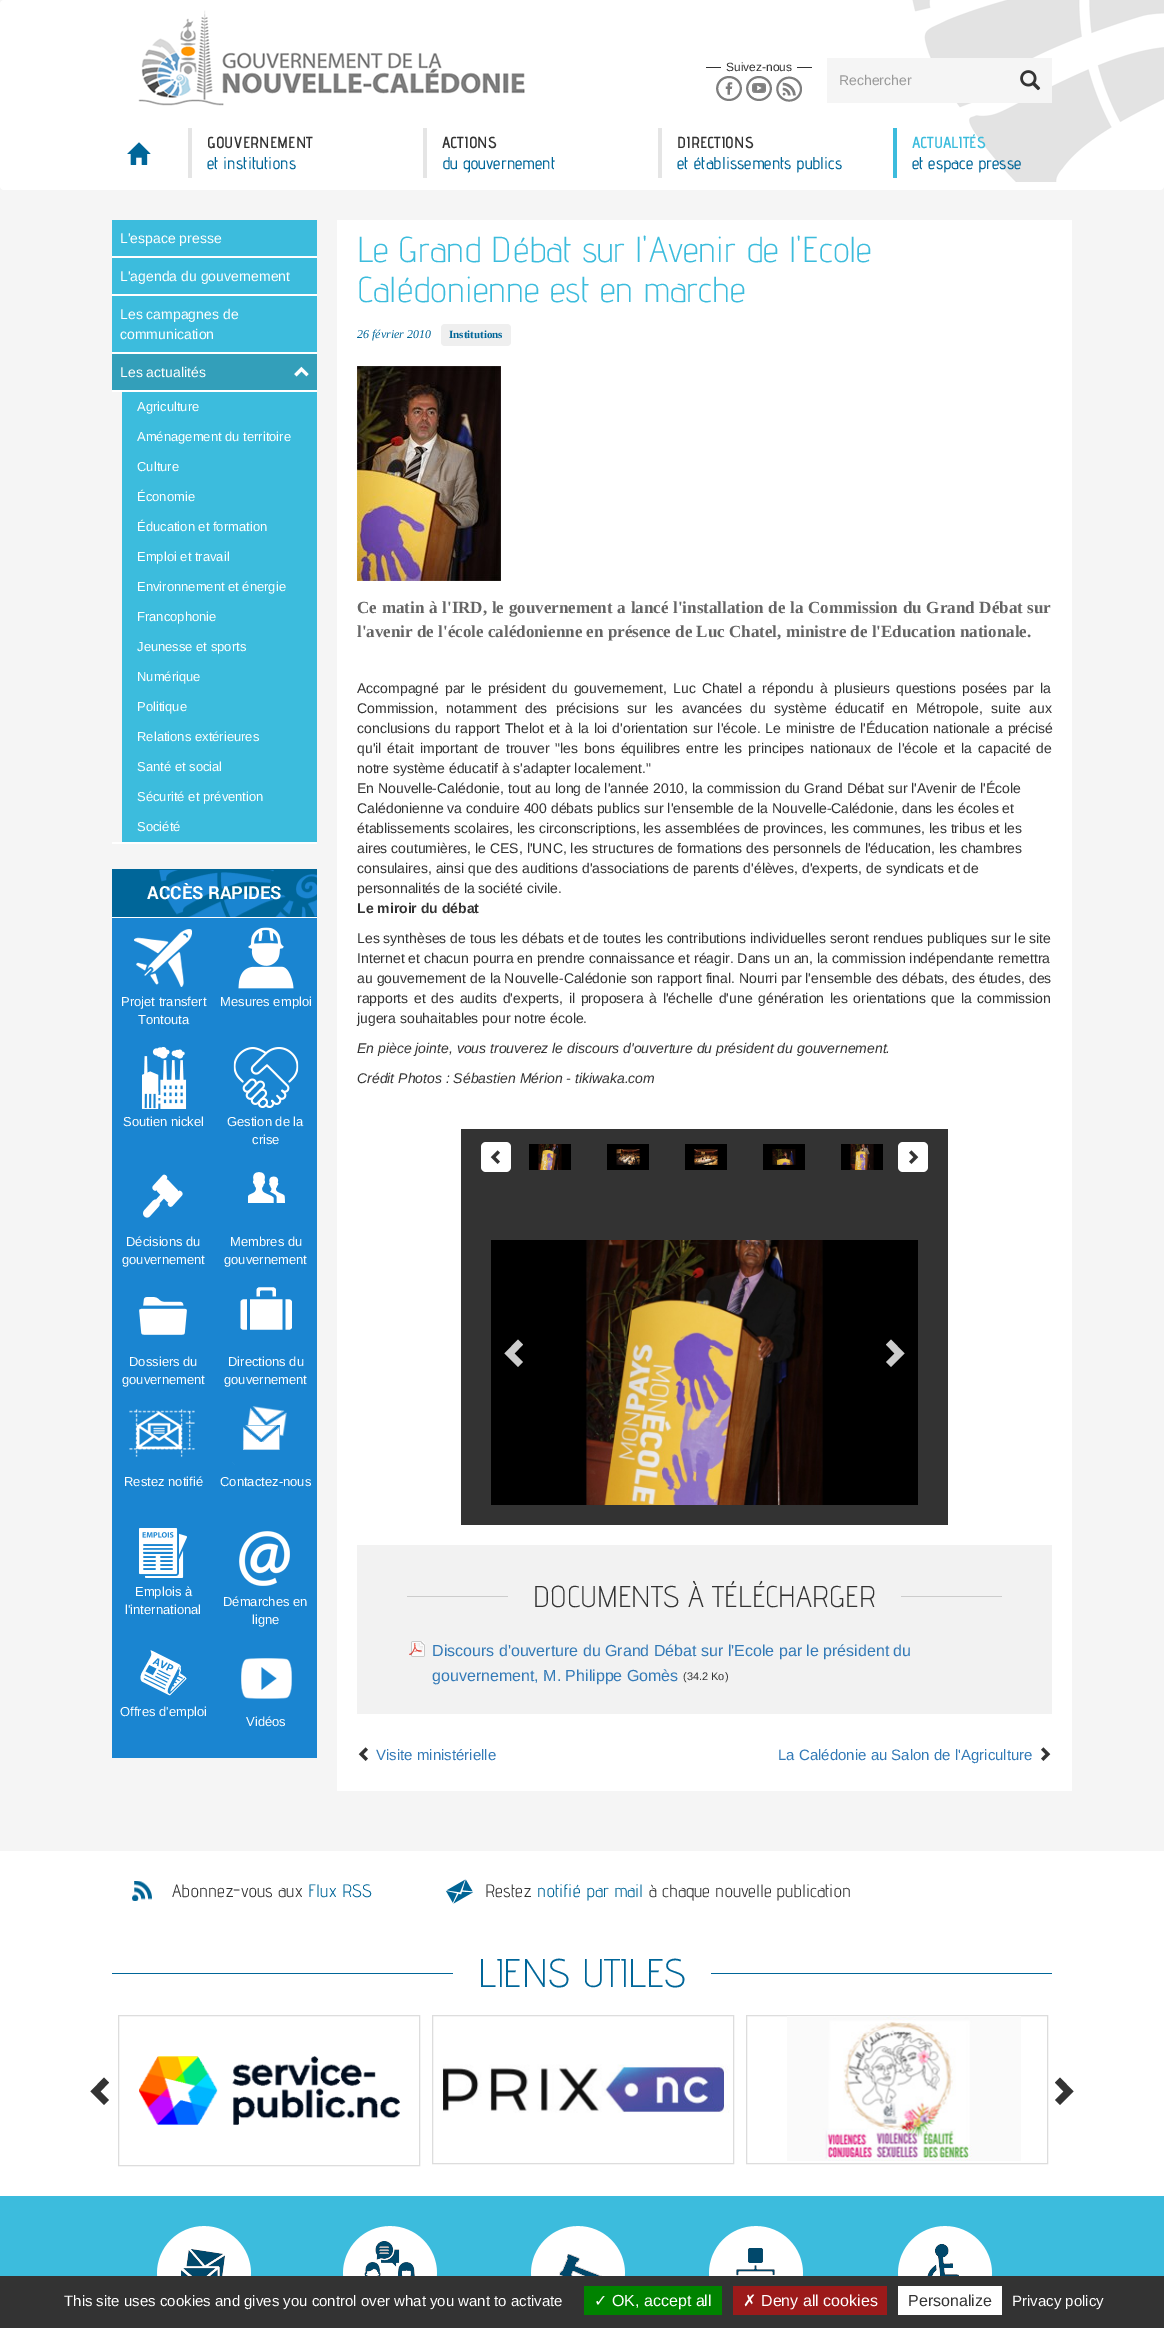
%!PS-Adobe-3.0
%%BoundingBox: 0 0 1164 2328
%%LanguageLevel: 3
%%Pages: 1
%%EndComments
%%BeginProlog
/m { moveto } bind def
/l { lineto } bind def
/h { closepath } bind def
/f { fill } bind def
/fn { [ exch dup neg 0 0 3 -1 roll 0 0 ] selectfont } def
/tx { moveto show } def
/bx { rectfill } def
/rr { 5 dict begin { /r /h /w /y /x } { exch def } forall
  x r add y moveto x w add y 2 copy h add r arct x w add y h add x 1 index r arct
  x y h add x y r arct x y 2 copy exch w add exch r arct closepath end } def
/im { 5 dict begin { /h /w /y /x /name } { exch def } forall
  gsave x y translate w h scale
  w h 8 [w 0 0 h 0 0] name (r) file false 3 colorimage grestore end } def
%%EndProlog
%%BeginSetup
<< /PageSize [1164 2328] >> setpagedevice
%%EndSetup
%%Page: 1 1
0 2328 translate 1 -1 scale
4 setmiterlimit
0.961 setgray
0 0 1164 2328 bx
1 setgray
0 0 1164 190 4 rr f
(image0.raw) 138 10 387 96 im
0.2 setgray
706 67 15 1 bx
/LiberationSans-Regular 12 fn
(Suivez-nous) 726 71 tx
797 67 15 1 bx
(image1.raw) 716 76 26 25 im
(image2.raw) 746 76 26 25 im
(image3.raw) 776 76 26 26 im
(image5.raw) 912 0 252 182 im
0.961 setgray
827 58 225 45 bx
/LiberationSans-Regular 14 fn
0.6 setgray
(Rechercher) 839 85 tx
(image4.raw) 1020 70 21 21 im
(image6.raw) 127 142 24 23 im
0.898 setgray
188 128 4 50 bx
/AdventPro-SemiBold 16 fn
0.2 setgray
(GOUVERNEMENT) 207 148 tx
/AdventPro-Medium 17 fn
0 0.4 0.6 setrgbcolor
(et institutions) 207 169 tx
0.898 setgray
423 128 4 50 bx
/AdventPro-SemiBold 16 fn
0.2 setgray
(ACTIONS) 442 148 tx
/AdventPro-Medium 17 fn
0 0.4 0.6 setrgbcolor
(du gouvernement) 442 169 tx
0.898 setgray
658 128 4 50 bx
/AdventPro-SemiBold 16 fn
0.2 setgray
(DIRECTIONS) 677 148 tx
/AdventPro-Medium 17 fn
0 0.4 0.6 setrgbcolor
(et établissements publics) 677 169 tx
0.235 0.737 0.867 setrgbcolor
893 128 4 50 bx
/AdventPro-SemiBold 16 fn
(ACTUALITÉS) 912 148 tx
/AdventPro-Medium 17 fn
0 0.4 0.6 setrgbcolor
(et espace presse) 912 169 tx
0.235 0.737 0.867 setrgbcolor
112 220 205 36 bx
1 setgray
112 256 205 2 bx
/LiberationSans-Regular 14 fn
(L'espace presse) 120 243 tx
0.235 0.737 0.867 setrgbcolor
112 258 205 36 bx
1 setgray
112 294 205 2 bx
(L'agenda du gouvernement) 120 281 tx
0.235 0.737 0.867 setrgbcolor
112 296 205 56 bx
1 setgray
112 352 205 2 bx
(Les campagnes de) 120 319 tx
(communication) 120 339 tx
112 842 205 2 bx
0.2 0.624 0.729 setrgbcolor
112 354 205 36 bx
(image7.raw) 294 366 15 11 im
1 setgray
112 390 205 2 bx
(Les actualités) 120 377 tx
0.235 0.737 0.867 setrgbcolor
122 392 195 450 bx
/LiberationSans-Regular 13 fn
1 setgray
(Agriculture) 137 411 tx
(Aménagement du territoire) 137 441 tx
(Culture) 137 471 tx
(Économie) 137 501 tx
(Éducation et formation) 137 531 tx
(Emploi et travail) 137 561 tx
(Environnement et énergie) 137 591 tx
(Francophonie) 137 621 tx
(Jeunesse et sports) 137 651 tx
(Numérique) 137 681 tx
(Politique) 137 711 tx
(Relations extérieures) 137 741 tx
(Santé et social) 137 771 tx
(Sécurité et prévention) 137 801 tx
(Société) 137 831 tx
0.102 0.522 0.82 setrgbcolor
112 918 205 840 bx
0 0.4 0.6 setrgbcolor
112 869 205 48 bx
(image8.raw) 159 870 158 47 im
1 setgray
112 917 205 1 bx
/Roboto-Bold 18 fn
(ACCÈS RAPIDES) 147 899 tx
(image9.raw) 134 929 58 58 im
/LiberationSans-Regular 13 fn
(Projet transfert) 121 1006 tx
(Tontouta) 138 1024 tx
(image10.raw) 238 927 56 62 im
(Mesures emploi) 220 1006 tx
(image11.raw) 141 1047 46 62 im
(Soutien nickel) 123 1126 tx
(image12.raw) 233 1047 66 61 im
(Gestion de la) 227 1126 tx
(crise) 252 1144 tx
(image13.raw) 143 1174 40 44 im
(Décisions du) 126 1246 tx
(gouvernement) 122 1264 tx
(image14.raw) 248 1172 37 31 im
(Membres du) 230 1246 tx
(gouvernement) 224 1264 tx
(image15.raw) 139 1297 48 38 im
(Dossiers du) 129 1366 tx
(gouvernement) 122 1384 tx
(image16.raw) 240 1287 52 43 im
(Directions du) 228 1366 tx
(gouvernement) 224 1384 tx
(image17.raw) 129 1409 66 48 im
(Restez notifié) 124 1486 tx
(image18.raw) 232 1406 55 59 im
(Contactez-nous) 220 1486 tx
(image19.raw) 139 1528 48 50 im
(Emplois à) 135 1596 tx
(l'international) 125 1614 tx
(image20.raw) 239 1531 51 55 im
(Démarches en) 223 1606 tx
(ligne) 252 1624 tx
(image21.raw) 140 1650 47 46 im
(Offres d'emploi) 120 1716 tx
(image22.raw) 241 1658 51 41 im
(Vidéos) 246 1726 tx
337 220 735 1571 bx
/AdventPro-Light 36 fn
0.235 0.737 0.867 setrgbcolor
(Le Grand Débat sur l'Avenir de l'Ecole) 357 262 tx
(Calédonienne est en marche) 357 302 tx
/LiberationSerif-Italic 12 fn
0 0.4 0.6 setrgbcolor
(26 février 2010) 357 338 tx
0.937 setgray
441 324 70 22 4 rr f
/LiberationSerif-Bold 11 fn
0 0.4 0.6 setrgbcolor
(Institutions) 449 338 tx
(image23.raw) 357 366 144 215 im
/LiberationSerif-Bold 17 fn
0.4 setgray
357 613 m 0.5 0 32 (Ce matin à l'IRD, le gouvernement a lancé l'installation de la Commission du Grand Débat sur) widthshow
(l'avenir de l'école calédonienne en présence de Luc Chatel, ministre de l'Education nationale.) 357 637 tx
/LiberationSans-Regular 14 fn
0.2 setgray
357 693 m 2.25 0 32 (Accompagné par le président du gouvernement, Luc Chatel a répondu à plusieurs questions posées par la) widthshow
357 713 m 4.6 0 32 (Commission, notamment des précisions sur les avancées du système éducatif en Métropole, suite aux) widthshow
357 733 m 1 0 32 (conclusions du rapport Thelot et à la loi d'orientation sur l'école. Le ministre de l'Éducation nationale a précisé) widthshow
357 753 m 2.1 0 32 (qu'il était important de trouver "les bons équilibres entre les principes nationaux de l'école et la capacité de) widthshow
(notre système éducatif à s'adapter localement.") 357 773 tx
(En Nouvelle-Calédonie, tout au long de l'année 2010, la commission du Grand Débat sur l'Avenir de l'École) 357 793 tx
(Calédonienne va conduire 400 débats publics sur l'ensemble de la Nouvelle-Calédonie, dans les écoles et) 357 813 tx
(établissements scolaires, les circonscriptions, les assemblées de provinces, les communes, les tribus et les) 357 833 tx
(aires coutumières, le CES, l'UNC, les structures de formations des personnels de l'éducation, les chambres) 357 853 tx
(consulaires, ainsi que des auditions d'associations de parents d'élèves, d'experts, de syndicats et de) 357 873 tx
(personnalités de la société civile.) 357 893 tx
/LiberationSans-Bold 14 fn
(Le miroir du débat) 357 913 tx
/LiberationSans-Regular 14 fn
(Les synthèses de tous les débats et de toutes les contributions individuelles seront rendues publiques sur le site) 357 943 tx
(Internet et chacun pourra en prendre connaissance et réagir. Dans un an, la commission indépendante remettra) 357 963 tx
357 983 m 0.1 0 32 (au gouvernement de la Nouvelle-Calédonie son rapport final. Nourri par l'ensemble des débats, des études, des) widthshow
357 1003 m 1.8 0 32 (rapports et des audits d'experts, il proposera à l'échelle d'une génération les orientations que la commission) widthshow
(jugera souhaitables pour notre école.) 357 1023 tx
/LiberationSans-Italic 14 fn
(En pièce jointe, vous trouverez le discours d'ouverture du président du gouvernement.) 357 1053 tx
(Crédit Photos : Sébastien Mérion - tikiwaka.com) 357 1083 tx
461 1129 487 396 bx
1 setgray
481 1142 30 30 5 rr f
(image24.raw) 490 1150 10 14 im
(image25.raw) 529 1144 42 26 im
(image26.raw) 607 1144 42 26 im
(image27.raw) 685 1144 42 26 im
(image28.raw) 763 1144 42 26 im
(image29.raw) 841 1144 42 26 im
898 1142 30 30 5 rr f
(image30.raw) 909 1150 10 14 im
(image31.raw) 491 1240 427 265 im
0.8 setgray
523 1344.5 m 514.5 1353.5 l 523 1362 l 518 1367 l 504.5 1353.5 l 518 1339.5 l h f
904.5 1353.5 m 891 1367 l 886 1362 l 894.5 1353.5 l 886 1344.5 l 891 1339.5 l h f
0.949 setgray
357 1545 695 169 bx
0.8 setgray
407 1596 595 1 bx
0.949 setgray
508 1596 393 1 bx
/AdventPro-Light 30 fn
0.2 setgray
(DOCUMENTS À TÉLÉCHARGER) 533 1607 tx
(image32.raw) 409 1641 16 16 im
/LiberationSans-Regular 16 fn
0.2 0.478 0.718 setrgbcolor
(Discours d'ouverture du Grand Débat sur l'Ecole par le président du) 432 1656 tx
(gouvernement, M. Philippe Gomès) 432 1681 tx
/LiberationSans-Regular 11 fn
0.2 setgray
(\(34.2 Ko\)) 683 1680 tx
(image24.raw) 358 1747 10 14 im
/LiberationSans-Regular 15 fn
0.2 0.478 0.718 setrgbcolor
(Visite ministérielle) 376 1760 tx
(La Calédonie au Salon de l'Agriculture) 778 1760 tx
(image30.raw) 1041 1747 10 14 im
1 setgray
0 1851 1164 345 bx
(image33.raw) 132 1881 20 20 im
/AdventPro-Regular 18 fn
0.2 setgray
(Abonnez-vous aux) 172 1897 tx
0 0.4 0.6 setrgbcolor
(Flux RSS) 308 1897 tx
(image34.raw) 445 1879 29 25 im
0.2 setgray
(Restez) 485 1897 tx
0 0.4 0.6 setrgbcolor
(notifié par mail) 537 1897 tx
0.2 setgray
(à chaque nouvelle publication) 648 1897 tx
0 0.4 0.6 setrgbcolor
112 1973 940 1 bx
1 setgray
453 1973 258 1 bx
/AdventPro-Light 40 fn
0 0.4 0.6 setrgbcolor
(LIENS UTILES) 478 1987 tx
0.2 setgray
109 2082.5 m 100.5 2091.5 l 109 2100 l 104 2105 l 90.5 2091.5 l 104 2077.5 l h f
0.867 setgray
118.5 2015.5 301 150 rectstroke
(image35.raw) 139 2056 261 69 im
432.5 2015.5 301 148 rectstroke
(image36.raw) 442 2064 288 49 im
746.5 2015.5 301 148 rectstroke
(image37.raw) 787 2016 234 145 im
0.2 setgray
1073.5 2091.5 m 1060 2105 l 1055 2100 l 1063.5 2091.5 l 1055 2082.5 l 1060 2077.5 l h f
0.235 0.737 0.867 setrgbcolor
0 2196 1164 80 bx
(image38.raw) 157 2226 94 50 im
(image39.raw) 343 2226 94 50 im
(image40.raw) 531 2226 94 50 im
(image41.raw) 709 2226 94 50 im
(image42.raw) 898 2226 94 50 im
0.2 setgray
0 2276 1164 52 bx
/LiberationSans-Regular 15 fn
1 setgray
(This site uses cookies and gives you control over what you want to activate) 64 2306 tx
0 0.514 0 setrgbcolor
584 2286 138 29 bx
/DejaVuSans-Regular 16 fn
1 setgray
(✓) 594 2306 tx
/LiberationSans-Regular 16 fn
(OK, accept all) 612 2306 tx
0.612 0.102 0.102 setrgbcolor
733 2286 154 29 bx
/DejaVuSans-Regular 16 fn
1 setgray
(✗) 743 2306 tx
/LiberationSans-Regular 16 fn
(Deny all cookies) 761 2306 tx
898 2286 104 29 bx
0.2 setgray
(Personalize) 908 2306 tx
/LiberationSans-Regular 15 fn
1 setgray
(Privacy policy) 1012 2306 tx
showpage
%%EOF
